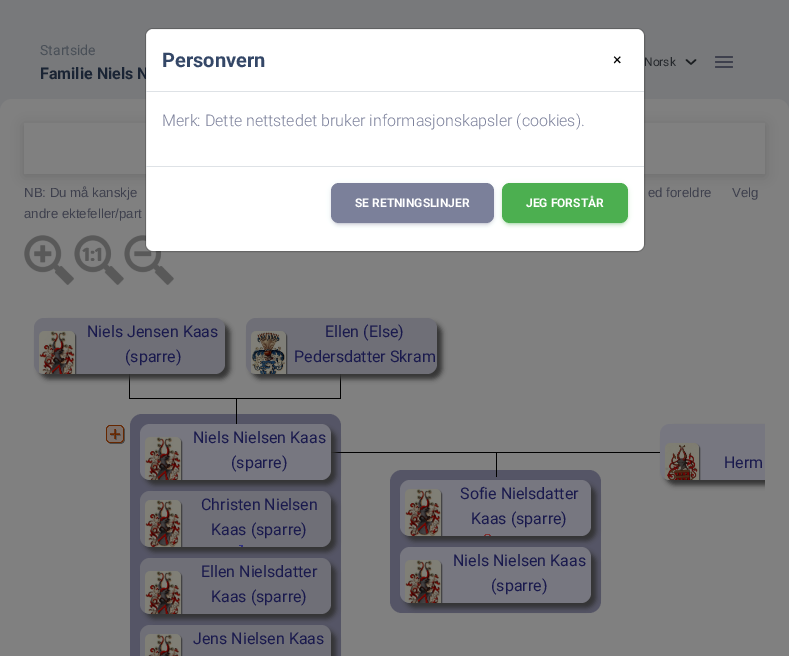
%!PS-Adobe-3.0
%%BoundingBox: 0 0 789 656
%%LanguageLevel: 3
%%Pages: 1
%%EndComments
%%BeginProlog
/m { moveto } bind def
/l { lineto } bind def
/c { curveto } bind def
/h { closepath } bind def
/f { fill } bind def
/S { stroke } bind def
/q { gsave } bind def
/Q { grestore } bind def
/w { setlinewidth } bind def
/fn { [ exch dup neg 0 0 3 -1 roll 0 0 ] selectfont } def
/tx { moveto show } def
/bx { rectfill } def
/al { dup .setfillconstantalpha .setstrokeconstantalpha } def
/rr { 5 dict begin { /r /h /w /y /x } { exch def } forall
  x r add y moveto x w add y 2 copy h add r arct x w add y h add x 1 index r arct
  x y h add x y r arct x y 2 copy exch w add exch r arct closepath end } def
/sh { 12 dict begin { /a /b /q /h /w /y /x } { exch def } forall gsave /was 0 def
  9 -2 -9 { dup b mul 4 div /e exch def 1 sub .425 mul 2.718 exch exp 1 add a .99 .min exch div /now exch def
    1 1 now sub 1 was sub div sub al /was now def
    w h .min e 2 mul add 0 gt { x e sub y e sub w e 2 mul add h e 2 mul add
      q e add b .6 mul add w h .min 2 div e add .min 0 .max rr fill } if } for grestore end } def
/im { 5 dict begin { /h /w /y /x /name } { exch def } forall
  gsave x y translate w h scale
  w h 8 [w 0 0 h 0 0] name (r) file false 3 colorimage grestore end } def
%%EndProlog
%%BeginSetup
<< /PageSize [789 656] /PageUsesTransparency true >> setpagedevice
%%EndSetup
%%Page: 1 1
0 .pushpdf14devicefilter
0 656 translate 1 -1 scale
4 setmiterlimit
0.471 0.475 0.482 setrgbcolor
0 0 789 656 bx
/Roboto-Regular 14 fn
0.286 0.31 0.341 setrgbcolor
(Startside) 40 55 tx
/Roboto-Bold 16 fn
0.102 0.141 0.204 setrgbcolor
(Familie Niels N) 40 79 tx
0.102 0.114 0.125 setrgbcolor
1.5 w
1 setlinecap
1 setlinejoin
686.5 60 m 691 64 l 695.5 60 l S
/Roboto-Regular 12 fn
0.145 0.157 0.173 setrgbcolor
(Norsk) 644 66 tx
0.243 0.251 0.302 setrgbcolor
715 56 18 2 1 rr f
715 61 18 2 1 rr f
715 66 18 2 1 rr f
0.502 setgray
0 99 789 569 12 rr f
q
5 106 m 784 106 l 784 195 l 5 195 l h 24 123 m 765 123 l 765 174 l 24 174 l h eoclip newpath
0 setgray
24 125 741 51 0 6 0.16 sh
Q
(image2.raw) 124 235 50 50 im
1 setgray
146 29 498 222 7 rr f
0.2 al
0 setgray
1 w
0 setlinecap
0 setlinejoin
145.5 28.5 499 223 7.5 rr S
1 al
0.871 0.886 0.902 setrgbcolor
146 91 498 1 bx
/Roboto-Bold 20 fn
0.204 0.278 0.404 setrgbcolor
(Personvern) 162 67 tx
/Roboto-Regular 16 fn
0 setgray
(×) 613 65 tx
/Roboto-Light 16 fn
0.482 0.502 0.604 setrgbcolor
(Merk: Dette nettstedet bruker informasjonskapsler \(cookies\).) 162 126 tx
0.871 0.886 0.902 setrgbcolor
146 166 498 1 bx
0.482 0.502 0.604 setrgbcolor
331 184 163 40 8 2.5 0.15 sh
333 188 159 36 6 0.5 0.2 sh
331 186 163 40 8 1.5 0.15 sh
331 183 163 40 8 rr f
/Roboto-Bold 12 fn
1 setgray
(SE RETNINGSLINJER) 355 207 tx
0.298 0.686 0.314 setrgbcolor
502 184 126 40 8 2.5 0.15 sh
504 188 122 36 6 0.5 0.2 sh
502 186 126 40 8 1.5 0.15 sh
502 183 126 40 8 rr f
1 setgray
(JEG FORSTÅR) 526 207 tx
/LiberationSans-Regular 13.25 fn
0.243 0.251 0.302 setrgbcolor
(NB: Du må kanskje) 24 197 tx
(ed foreldre) 648 197 tx
(Velg) 732 197 tx
(andre ektefeller/part) 24 218 tx
(image0.raw) 24 235 50 50 im
(image1.raw) 74 235 50 50 im
0 setgray
340 374 1 25 bx
129 398 212 1 bx
129 374 1 25 bx
0.2 setgray
39 323 191 56 10 2.5 1 sh
0.435 0.435 0.467 setrgbcolor
34 318 191 56 10 rr f
q
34 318 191 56 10 rr clip newpath
0.235 setgray
40 332 36 52 5 0.5 1 sh
Q
(image3.raw) 39 331 36 43 im
/Roboto-Regular 16 fn
0.102 0.102 0.302 setrgbcolor
(Niels Jensen Kaas) 87 337 tx
(\(sparre\)) 125 362 tx
0.2 setgray
251 323 191 56 10 2.5 1 sh
0.435 0.435 0.467 setrgbcolor
246 318 191 56 10 rr f
q
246 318 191 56 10 rr clip newpath
0.235 setgray
252 332 35 52 5 0.5 1 sh
Q
(image4.raw) 251 331 35 43 im
0.102 0.102 0.302 setrgbcolor
(Ellen \(Else\)) 325 337 tx
(Pedersdatter Skram) 294 362 tx
0.333 0.333 0.4 setrgbcolor
130 414 211 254 12 rr f
0 setgray
236 399 1 25 bx
(image5.raw) 106 425 19 19 im
331 452 330 1 bx
0.2 setgray
145 496 191 56 10 2.5 1 sh
0.435 0.435 0.467 setrgbcolor
140 491 191 56 10 rr f
0.2 setgray
145 429 191 56 10 2.5 1 sh
0.467 0.467 0.502 setrgbcolor
140 424 191 56 10 rr f
q
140 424 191 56 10 rr clip newpath
0.235 setgray
146 438 36 52 5 0.5 1 sh
Q
(image6.raw) 145 437 36 43 im
0.102 0.102 0.302 setrgbcolor
(Niels Nielsen Kaas) 193 443 tx
(\(sparre\)) 231 468 tx
0.333 0.333 0.4 setrgbcolor
390 470 211 143 12 rr f
0 setgray
496 452 1 25 bx
q
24 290 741 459 rectclip
0.2 setgray
665 429 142 56 10 2.5 1 sh
Q
0.467 0.467 0.502 setrgbcolor
670 424 m 765 424 l 765 480 l 670 480 l 664.5 480 660 475.5 660 470 c 660 434 l 660 428.5 664.5 424 670 424 c h f
q
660 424 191 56 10 rr clip newpath
0.235 setgray
666 444 34 52 5 0.5 1 sh
Q
(image7.raw) 665 443 34 37 im
0.102 0.102 0.302 setrgbcolor
(Herm) 724 468 tx
q
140 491 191 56 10 rr clip newpath
0.235 setgray
146 501 36 52 5 0.5 1 sh
Q
(image8.raw) 145 500 36 47 im
(Christen Nielsen) 201 510 tx
(Kaas \(sparre\)) 211 535 tx
(image9.raw) 239 545 4 2 im
0.2 setgray
405 485 191 56 10 2.5 1 sh
0.467 0.467 0.502 setrgbcolor
400 480 191 56 10 rr f
q
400 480 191 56 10 rr clip newpath
0.235 setgray
406 490 36 52 5 0.5 1 sh
Q
(image10.raw) 405 489 36 47 im
0.102 0.102 0.302 setrgbcolor
(Sofie Nielsdatter) 460 499 tx
(Kaas \(sparre\)) 471 524 tx
(image11.raw) 484 534 7 2 im
0.2 setgray
145 563 191 56 10 2.5 1 sh
0.435 0.435 0.467 setrgbcolor
140 558 191 56 10 rr f
q
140 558 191 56 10 rr clip newpath
0.235 setgray
146 572 36 52 5 0.5 1 sh
Q
(image12.raw) 145 571 36 43 im
0.102 0.102 0.302 setrgbcolor
(Ellen Nielsdatter) 201 577 tx
(Kaas \(sparre\)) 211 602 tx
0.2 setgray
405 552 191 56 10 2.5 1 sh
0.467 0.467 0.502 setrgbcolor
400 547 191 56 10 rr f
q
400 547 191 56 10 rr clip newpath
0.235 setgray
406 561 36 52 5 0.5 1 sh
Q
(image13.raw) 405 560 36 43 im
0.102 0.102 0.302 setrgbcolor
(Niels Nielsen Kaas) 453 566 tx
(\(sparre\)) 491 591 tx
0.2 setgray
145 630 191 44 10 2.5 1 sh
0.435 0.435 0.467 setrgbcolor
140 625 191 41 10 rr f
0.235 setgray
146 635 36 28 5 0.5 1 sh
(image14.raw) 145 634 36 22 im
0.102 0.102 0.302 setrgbcolor
(Jens Nielsen Kaas) 193 644 tx
.poppdf14devicefilter showpage
%%EOF
